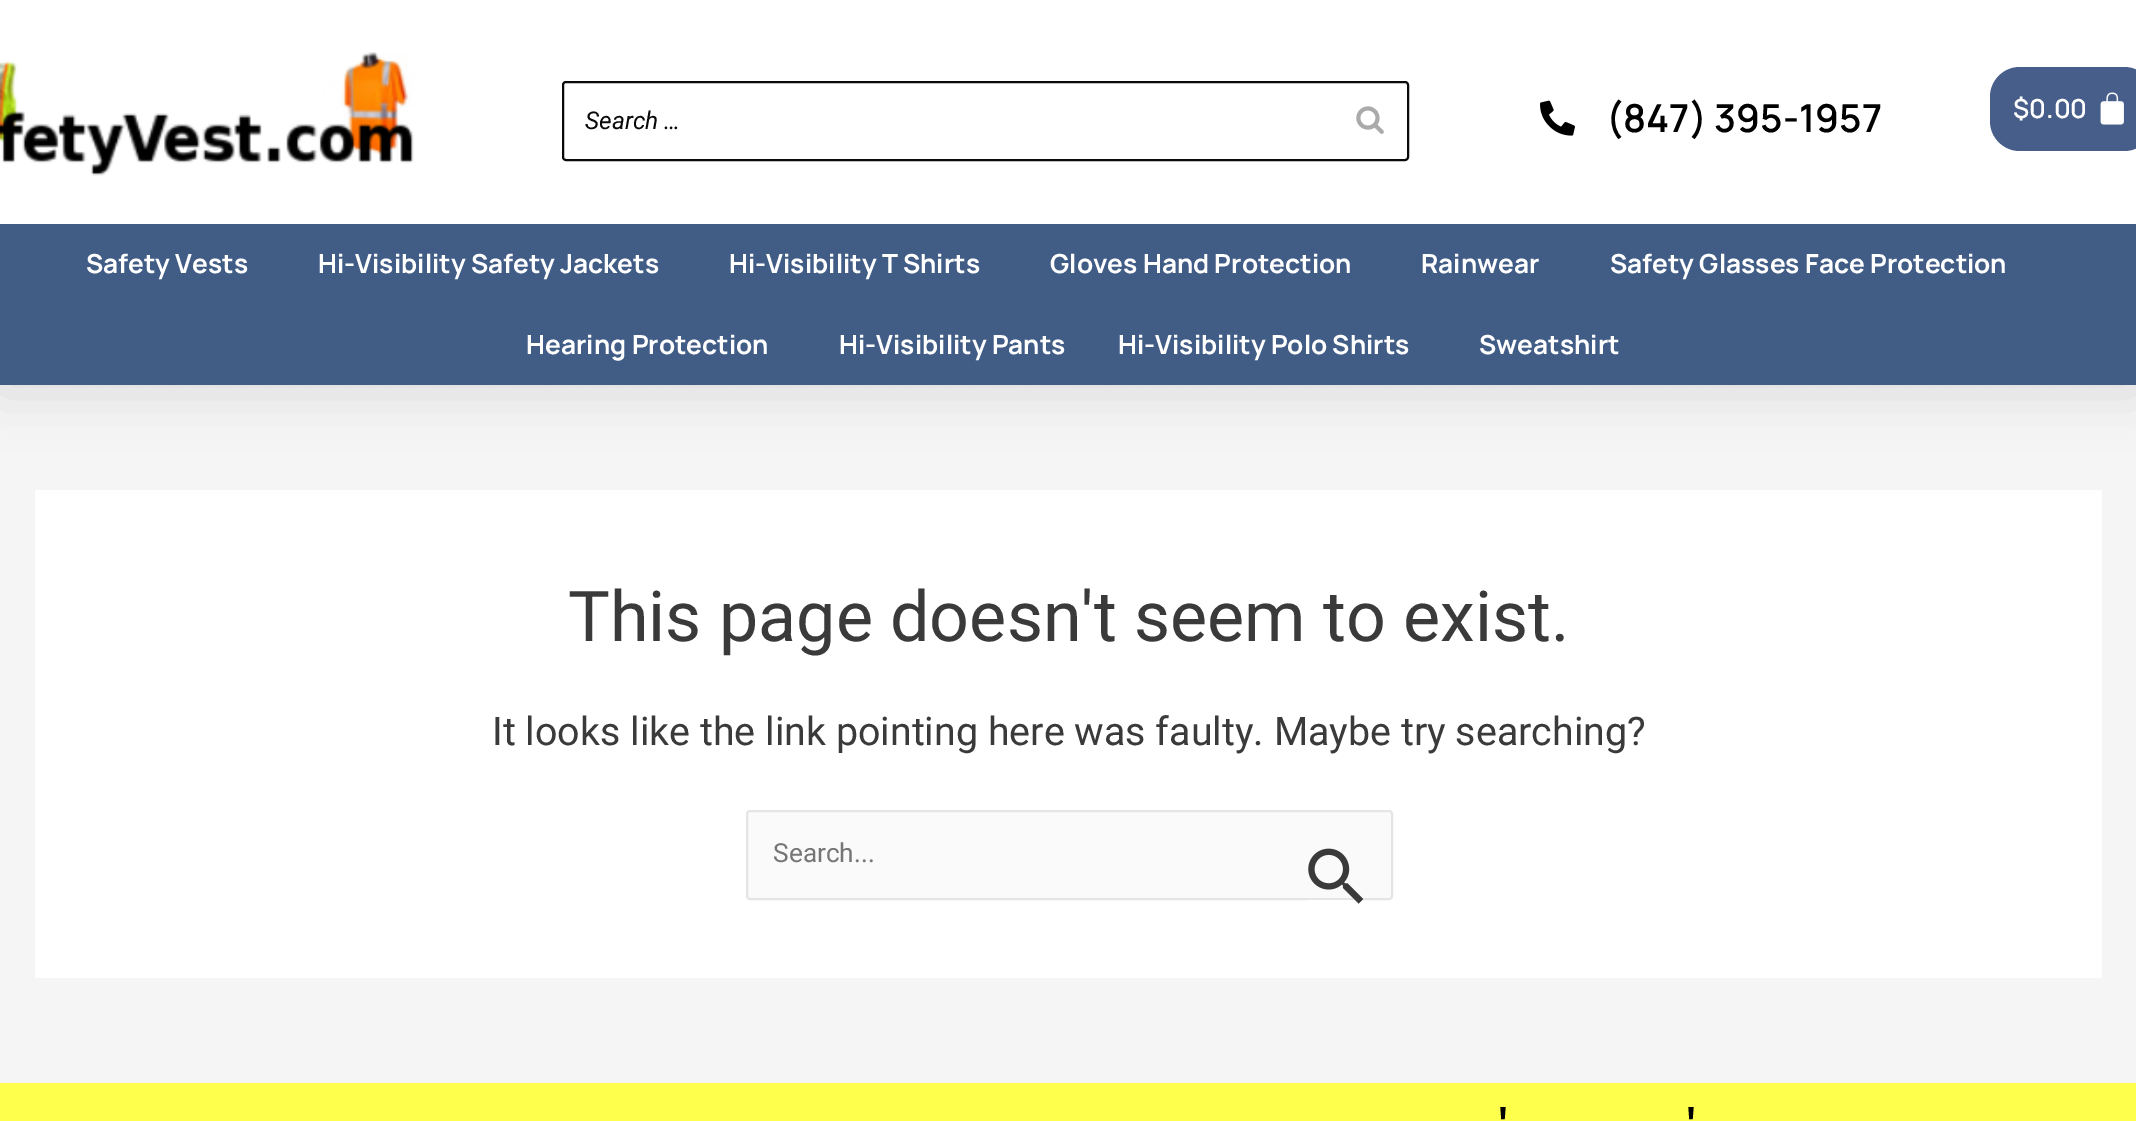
%!PS-Adobe-3.0
%%BoundingBox: 0 0 2136 1121
%%LanguageLevel: 3
%%Pages: 1
%%EndComments
%%BeginProlog
/f { fill } bind def
/S { stroke } bind def
/q { gsave } bind def
/Q { grestore } bind def
/w { setlinewidth } bind def
/fn { [ exch dup neg 0 0 3 -1 roll 0 0 ] selectfont } def
/tx { moveto show } def
/bx { rectfill } def
/al { dup .setfillconstantalpha .setstrokeconstantalpha } def
/rr { 5 dict begin { /r /h /w /y /x } { exch def } forall
  x r add y moveto x w add y 2 copy h add r arct x w add y h add x 1 index r arct
  x y h add x y r arct x y 2 copy exch w add exch r arct closepath end } def
/sh { 12 dict begin { /a /b /q /h /w /y /x } { exch def } forall gsave /was 0 def
  9 -2 -9 { dup b mul 4 div /e exch def 1 sub .425 mul 2.718 exch exp 1 add a .99 .min exch div /now exch def
    1 1 now sub 1 was sub div sub al /was now def
    w h .min e 2 mul add 0 gt { x e sub y e sub w e 2 mul add h e 2 mul add
      q e add b .6 mul add w h .min 2 div e add .min 0 .max rr fill } if } for grestore end } def
/im { 5 dict begin { /h /w /y /x /name } { exch def } forall
  gsave x y translate w h scale
  w h 8 [w 0 0 h 0 0] name (r) file false 3 colorimage grestore end } def
%%EndProlog
%%BeginSetup
<< /PageSize [2136 1121] /PageUsesTransparency true >> setpagedevice
%%EndSetup
%%Page: 1 1
0 .pushpdf14devicefilter
0 1121 translate 1 -1 scale
4 setmiterlimit
0.961 setgray
0 0 2136 1121 bx
0 setgray
0 9 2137 385 0 26 0.1 sh
1 setgray
0 0 2136 224 bx
(image0.raw) 0 52 414 124 im
0.039 setgray
2 w
563 82 845 78 3 rr S
/Roboto-Italic 24.5 fn
(Search …) 585 129 tx
(image1.raw) 1356 106 28 28 im
(image2.raw) 1540 100 35 36 im
/Manrope-SemiBold 38.5 fn
0 setgray
(\(847\) 395-1957) 1606 132 tx
0.278 0.369 0.541 setrgbcolor
1990 67 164 84 30 rr f
/Manrope-SemiBold 26.25 fn
1 setgray
($0.00) 2013 118 tx
(image3.raw) 2100 92 24 33 im
0.188 0.31 0.49 setrgbcolor
0 224 2136 161 bx
(image4.raw) 0 224 2136 161 im
/Manrope-Bold 26.25 fn
1 setgray
(Safety Vests) 86 273 tx
(Hi-Visibility Safety Jackets) 318 273 tx
(Hi-Visibility T Shirts) 729 273 tx
(Gloves Hand Protection) 1050 273 tx
(Rainwear) 1421 273 tx
(Safety Glasses Face Protection) 1610 273 tx
(Hearing Protection) 526 354 tx
(Hi-Visibility Pants) 839 354 tx
(Hi-Visibility Polo Shirts) 1118 354 tx
(Sweatshirt) 1479 354 tx
35 490 2067 488 bx
/Roboto-Regular 70 fn
0.227 setgray
(This page doesn't seem to exist.) 568 641 tx
/Roboto-Regular 39.4 fn
(It looks like the link pointing here was faulty. Maybe try searching?) 492 745 tx
0.98 setgray
747 811 645 88 3 rr q f Q
0.898 setgray
S
/Roboto-Regular 26.25 fn
0.459 setgray
(Search...) 773 862 tx
(image5.raw) 1308 848 55 56 im
0.996 1 0.298 setrgbcolor
0 1083 2136 38 bx
/Myriad-Bold 46 fn
0 setgray
(') 1498 1140 tx
(') 1686 1140 tx
.poppdf14devicefilter showpage
%%EOF
